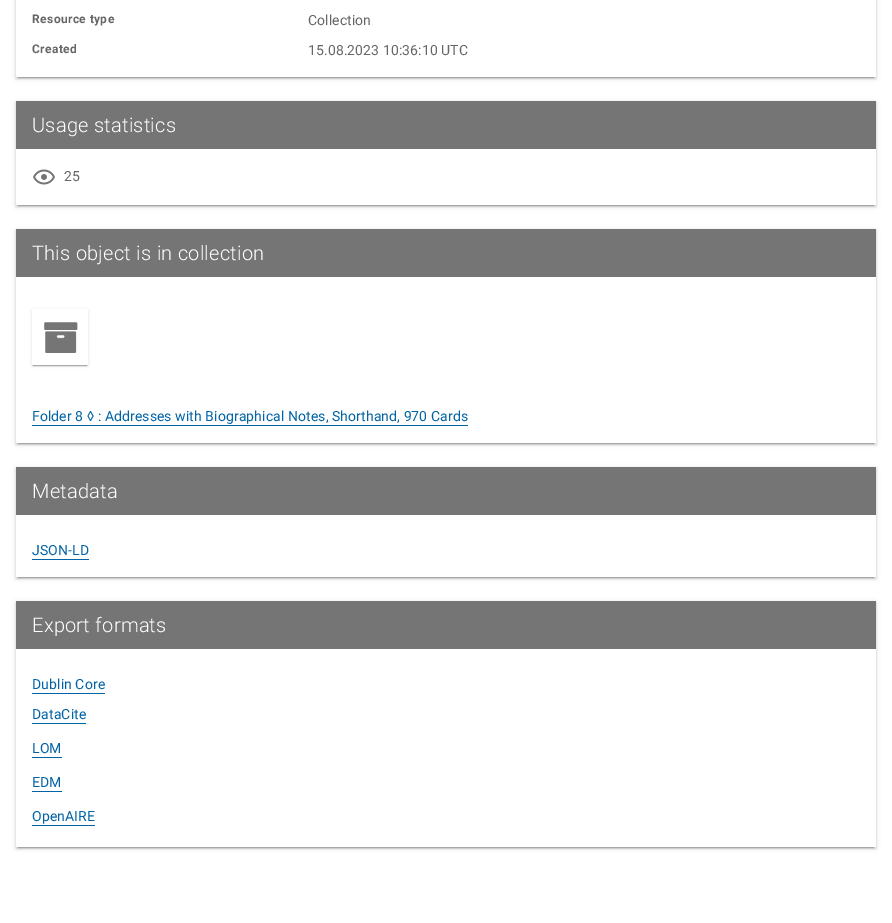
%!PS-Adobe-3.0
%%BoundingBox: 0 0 892 923
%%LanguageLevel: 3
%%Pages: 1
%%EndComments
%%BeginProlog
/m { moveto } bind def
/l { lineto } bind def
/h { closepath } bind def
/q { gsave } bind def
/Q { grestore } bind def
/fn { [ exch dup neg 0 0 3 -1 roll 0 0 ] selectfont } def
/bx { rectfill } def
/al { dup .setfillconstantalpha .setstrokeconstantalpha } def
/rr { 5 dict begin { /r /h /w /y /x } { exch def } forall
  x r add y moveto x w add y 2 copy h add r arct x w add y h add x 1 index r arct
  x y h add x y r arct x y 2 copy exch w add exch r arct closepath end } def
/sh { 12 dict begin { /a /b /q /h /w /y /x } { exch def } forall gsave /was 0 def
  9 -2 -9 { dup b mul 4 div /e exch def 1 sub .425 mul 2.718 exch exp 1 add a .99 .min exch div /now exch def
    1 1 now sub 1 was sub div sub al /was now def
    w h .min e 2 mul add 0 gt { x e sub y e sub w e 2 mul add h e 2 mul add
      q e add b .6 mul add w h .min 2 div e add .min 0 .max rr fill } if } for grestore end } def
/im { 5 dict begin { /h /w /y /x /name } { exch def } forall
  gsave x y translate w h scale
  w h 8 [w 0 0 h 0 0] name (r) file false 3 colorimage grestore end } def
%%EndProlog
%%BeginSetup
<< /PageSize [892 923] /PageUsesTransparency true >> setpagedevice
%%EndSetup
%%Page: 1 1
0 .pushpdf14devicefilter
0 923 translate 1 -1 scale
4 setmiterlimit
1 setgray
0 0 892 923 bx
q
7 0 m 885 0 l 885 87 l 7 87 l h 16 -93 m 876 -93 l 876 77 l 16 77 l h eoclip newpath
0 setgray
16 -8 860 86 0 2.5 0.12 sh
Q
q
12 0 m 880 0 l 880 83 l 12 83 l h 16 -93 m 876 -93 l 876 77 l 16 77 l h eoclip newpath
0 setgray
16 -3 860 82 0 1 0.14 sh
Q
q
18 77 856 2 rectclip
0 setgray
18 -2 856 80 0 0.5 0.2 sh
Q
/Roboto-Bold 12 fn
0.4 setgray
32 23 m 0.4 0 (Resource type) ashow
/Roboto-Regular 14 fn
308 25 m 0.1 0 (Collection) ashow
/Roboto-Bold 12 fn
32 53 m 0.4 0 (Created) ashow
/Roboto-Regular 14 fn
308 55 m 0.1 0 (15.08.2023 10:36:10 UTC) ashow
q
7 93 m 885 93 l 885 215 l 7 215 l h 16 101 m 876 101 l 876 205 l 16 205 l h eoclip newpath
0 setgray
16 102 860 104 0 2.5 0.12 sh
Q
q
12 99 m 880 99 l 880 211 l 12 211 l h 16 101 m 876 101 l 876 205 l 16 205 l h eoclip newpath
0 setgray
16 103 860 104 0 1 0.14 sh
Q
q
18 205 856 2 rectclip
0 setgray
18 106 856 100 0 0.5 0.2 sh
Q
0.459 setgray
16 101 860 48 bx
/Roboto-Light 20 fn
1 setgray
32 132 m 0.25 0 (Usage statistics) ashow
(image0.raw) 33 169 22 16 im
/Roboto-Regular 14 fn
0.4 setgray
64 181 m 0.1 0 (25) ashow
q
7 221 m 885 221 l 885 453 l 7 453 l h 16 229 m 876 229 l 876 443 l 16 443 l h eoclip newpath
0 setgray
16 230 860 214 0 2.5 0.12 sh
Q
q
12 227 m 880 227 l 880 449 l 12 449 l h 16 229 m 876 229 l 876 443 l 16 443 l h eoclip newpath
0 setgray
16 231 860 214 0 1 0.14 sh
Q
q
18 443 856 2 rectclip
0 setgray
18 234 856 210 0 0.5 0.2 sh
Q
0.459 setgray
16 229 860 48 bx
/Roboto-Light 20 fn
1 setgray
32 260 m 0.25 0 (This object is in collection) ashow
q
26 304 m 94 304 l 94 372 l 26 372 l h 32 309 m 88 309 l 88 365 l 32 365 l h eoclip newpath
0 setgray
32 310 56 56 0 1.5 0.12 sh
Q
q
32 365 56 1 rectclip
0 setgray
32 310 56 56 0 0.5 0.14 sh
Q
q
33 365 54 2 rectclip
0 setgray
33 312 54 54 0 0.5 0.2 sh
Q
(image1.raw) 44 322 34 31 im
/Roboto-Regular 14 fn
0 0.388 0.651 setrgbcolor
32 421 m 0.1 0 (Folder 8 ◊ : Addresses with Biographical Notes, Shorthand, 970 Cards) ashow
32 425 436 1 bx
q
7 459 m 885 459 l 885 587 l 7 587 l h 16 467 m 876 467 l 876 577 l 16 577 l h eoclip newpath
0 setgray
16 468 860 110 0 2.5 0.12 sh
Q
q
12 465 m 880 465 l 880 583 l 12 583 l h 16 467 m 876 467 l 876 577 l 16 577 l h eoclip newpath
0 setgray
16 469 860 110 0 1 0.14 sh
Q
q
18 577 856 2 rectclip
0 setgray
18 472 856 106 0 0.5 0.2 sh
Q
0.459 setgray
16 467 860 48 bx
/Roboto-Light 20 fn
1 setgray
32 498 m 0.25 0 (Metadata) ashow
/Roboto-Regular 14 fn
0 0.388 0.651 setrgbcolor
32 555 m 0.1 0 (JSON-LD) ashow
32 559 57 1 bx
q
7 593 m 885 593 l 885 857 l 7 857 l h 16 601 m 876 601 l 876 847 l 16 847 l h eoclip newpath
0 setgray
16 602 860 246 0 2.5 0.12 sh
Q
q
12 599 m 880 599 l 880 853 l 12 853 l h 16 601 m 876 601 l 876 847 l 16 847 l h eoclip newpath
0 setgray
16 603 860 246 0 1 0.14 sh
Q
q
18 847 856 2 rectclip
0 setgray
18 606 856 242 0 0.5 0.2 sh
Q
0.459 setgray
16 601 860 48 bx
/Roboto-Light 20 fn
1 setgray
32 632 m 0.25 0 (Export formats) ashow
/Roboto-Regular 14 fn
0 0.388 0.651 setrgbcolor
32 689 m 0.1 0 (Dublin Core) ashow
32 693 73 1 bx
32 719 m 0.1 0 (DataCite) ashow
32 723 54 1 bx
32 753 m 0.1 0 (LOM) ashow
32 757 30 1 bx
32 787 m 0.1 0 (EDM) ashow
32 791 30 1 bx
32 821 m 0.1 0 (OpenAIRE) ashow
32 825 63 1 bx
.poppdf14devicefilter showpage
%%EOF
